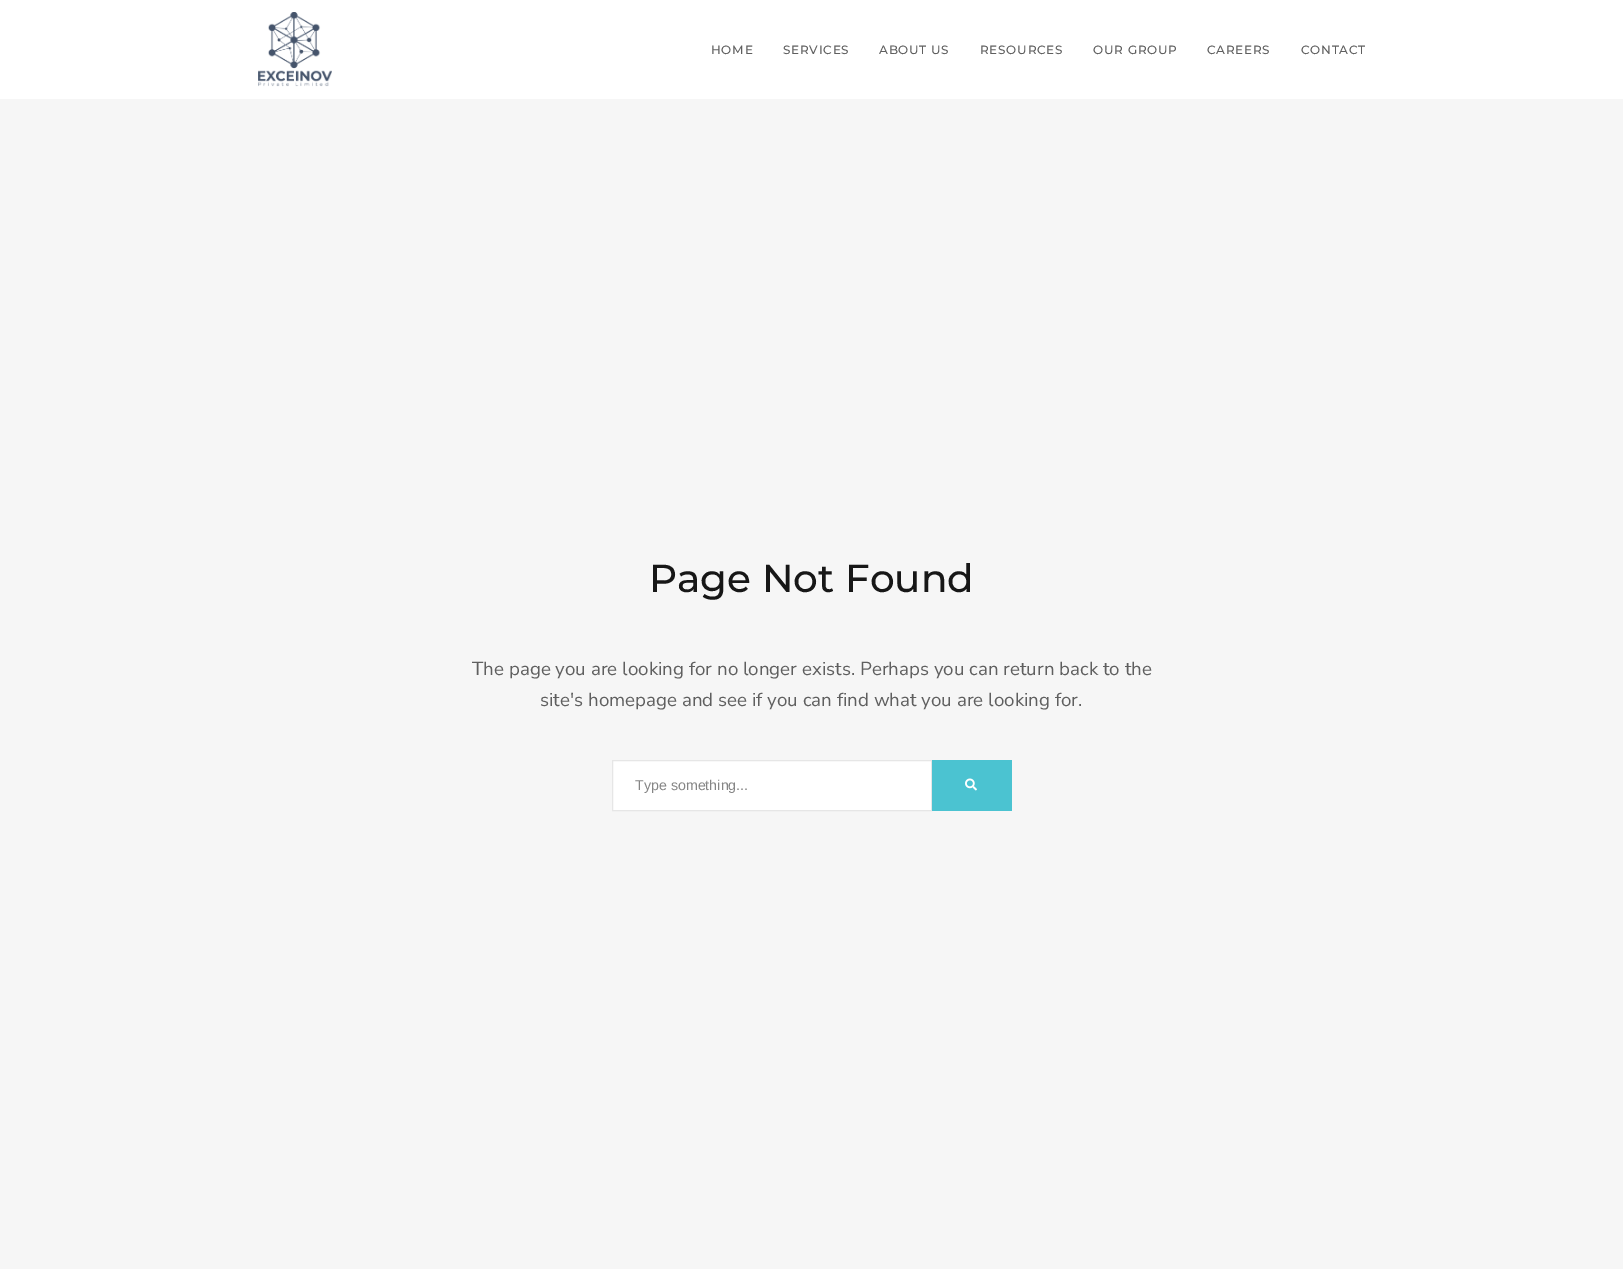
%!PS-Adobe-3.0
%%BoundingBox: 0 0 1623 1269
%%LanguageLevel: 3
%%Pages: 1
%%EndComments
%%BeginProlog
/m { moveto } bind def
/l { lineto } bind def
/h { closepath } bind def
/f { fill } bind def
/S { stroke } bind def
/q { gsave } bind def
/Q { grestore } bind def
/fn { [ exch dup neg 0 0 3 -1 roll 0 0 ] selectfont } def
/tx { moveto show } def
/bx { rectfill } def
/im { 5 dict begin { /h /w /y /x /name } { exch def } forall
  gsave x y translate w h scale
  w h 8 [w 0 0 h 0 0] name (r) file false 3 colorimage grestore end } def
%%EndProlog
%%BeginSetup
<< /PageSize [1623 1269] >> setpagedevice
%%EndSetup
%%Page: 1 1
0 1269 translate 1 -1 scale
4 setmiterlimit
0.965 setgray
0 0 1623 1269 bx
1 setgray
0 0 1623 99 bx
(image0.raw) 258 12 74 75 im
/Montserrat-Medium 12 fn
0.373 setgray
711 54 m 0.75 0 (HOME) ashow
783 54 m 0.75 0 (SERVICES) ashow
879 54 m 0.75 0 (ABOUT US) ashow
980 54 m 0.75 0 (RESOURCES) ashow
1093 54 m 0.75 0 (OUR GROUP) ashow
1207 54 m 0.75 0 (CAREERS) ashow
1301 54 m 0.75 0 (CONTACT) ashow
/Montserrat-Medium 39 fn
0.09 setgray
(Page Not Found) 649 592 tx
/NunitoSans-ExtraLight 18.75 fn
0.373 setgray
(The page you are looking for no longer exists. Perhaps you can return back to the) 472 675 tx
(site's homepage and see if you can find what you are looking for.) 540 706 tx
1 setgray
612.5 760.5 m 931.5 760.5 l 931.5 810.5 l 612.5 810.5 l h q f Q
0.902 setgray
S
/LiberationSans-Regular 14.25 fn
0.522 setgray
(Type something...) 635 790 tx
0.294 0.765 0.82 setrgbcolor
932 760 80 51 bx
(image1.raw) 965 778 12 13 im
showpage
%%EOF
